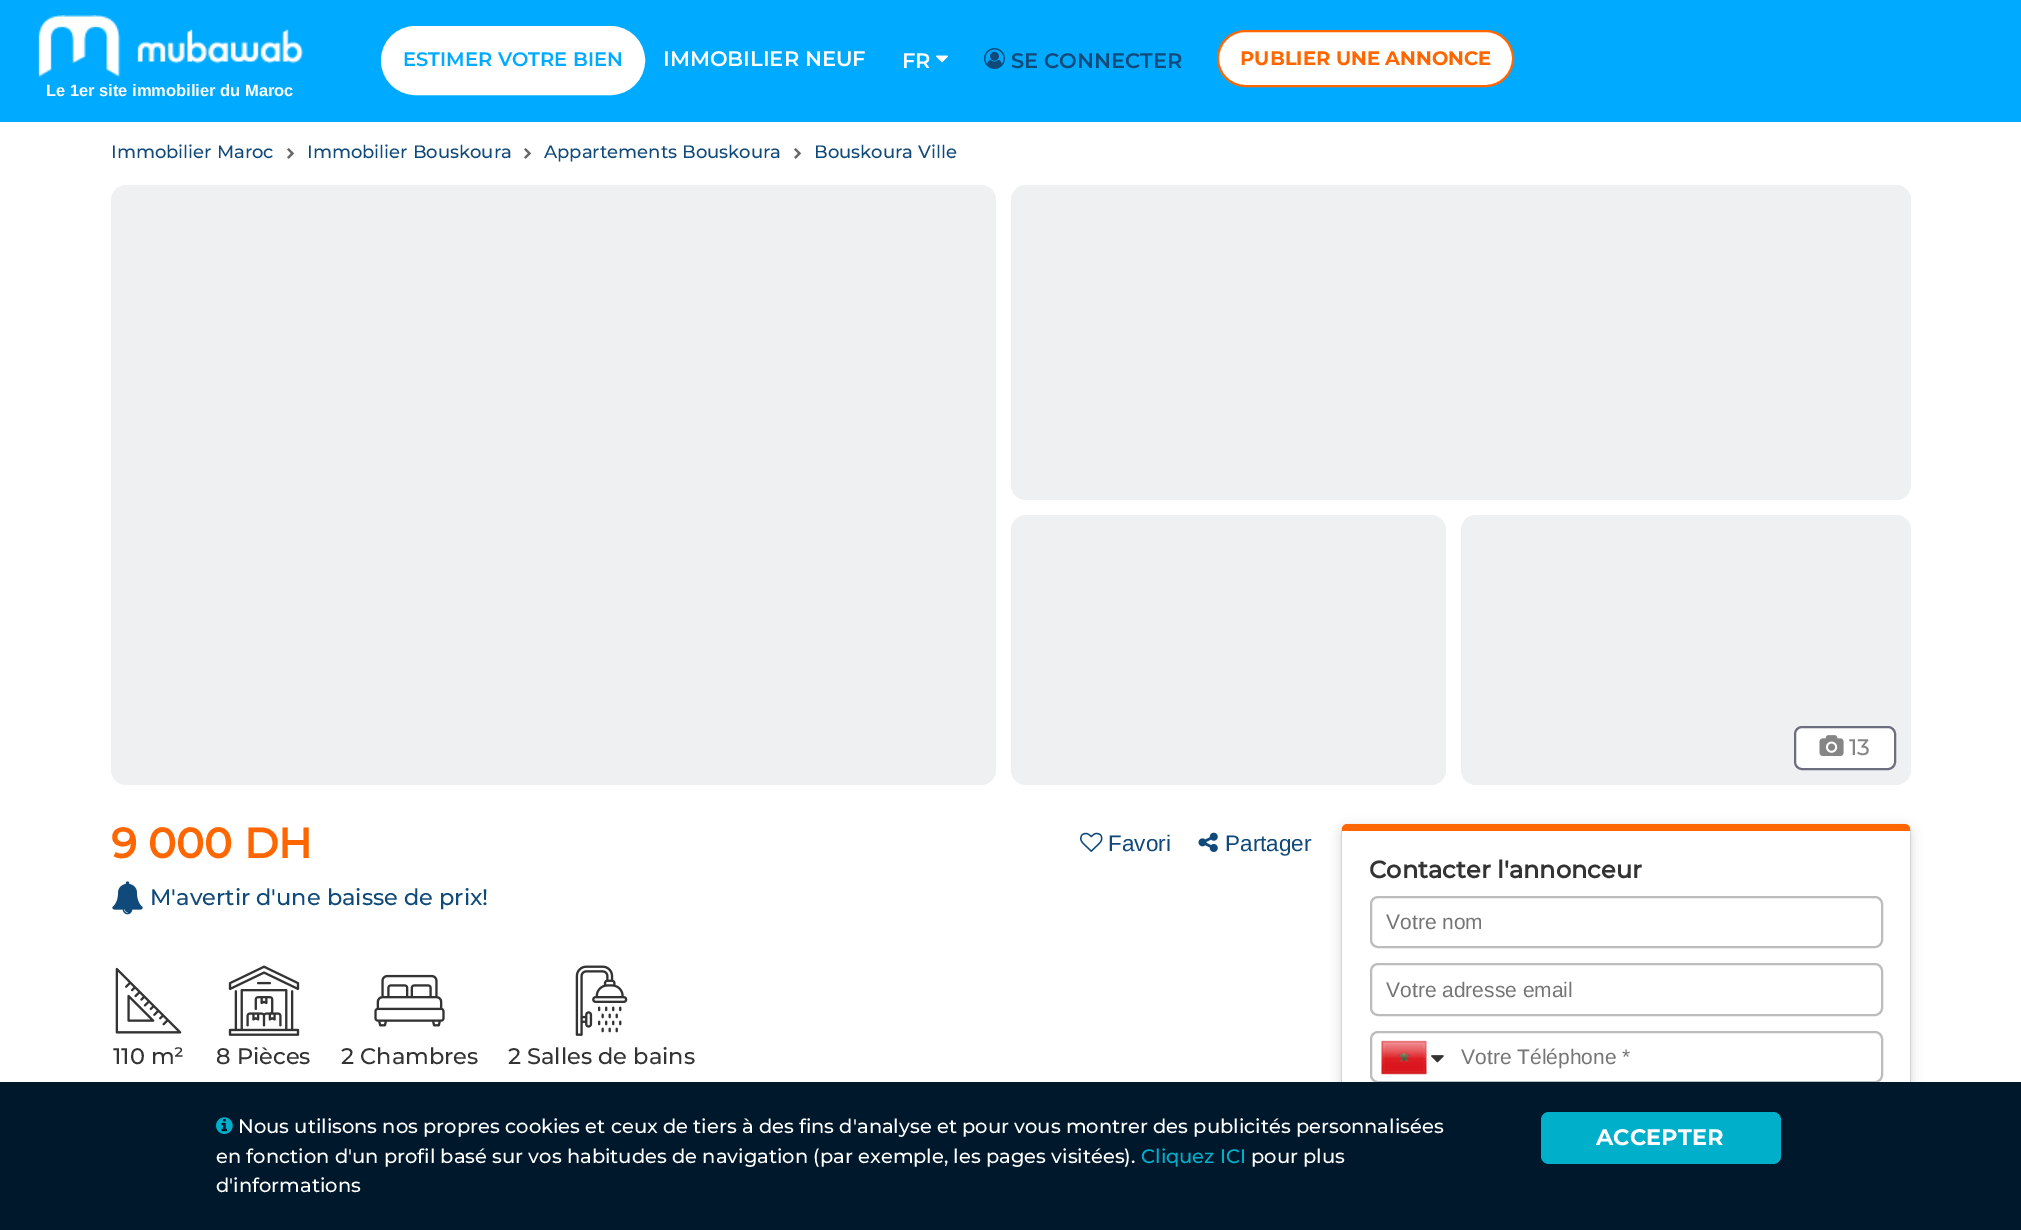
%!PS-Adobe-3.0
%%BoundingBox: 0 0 2021 1230
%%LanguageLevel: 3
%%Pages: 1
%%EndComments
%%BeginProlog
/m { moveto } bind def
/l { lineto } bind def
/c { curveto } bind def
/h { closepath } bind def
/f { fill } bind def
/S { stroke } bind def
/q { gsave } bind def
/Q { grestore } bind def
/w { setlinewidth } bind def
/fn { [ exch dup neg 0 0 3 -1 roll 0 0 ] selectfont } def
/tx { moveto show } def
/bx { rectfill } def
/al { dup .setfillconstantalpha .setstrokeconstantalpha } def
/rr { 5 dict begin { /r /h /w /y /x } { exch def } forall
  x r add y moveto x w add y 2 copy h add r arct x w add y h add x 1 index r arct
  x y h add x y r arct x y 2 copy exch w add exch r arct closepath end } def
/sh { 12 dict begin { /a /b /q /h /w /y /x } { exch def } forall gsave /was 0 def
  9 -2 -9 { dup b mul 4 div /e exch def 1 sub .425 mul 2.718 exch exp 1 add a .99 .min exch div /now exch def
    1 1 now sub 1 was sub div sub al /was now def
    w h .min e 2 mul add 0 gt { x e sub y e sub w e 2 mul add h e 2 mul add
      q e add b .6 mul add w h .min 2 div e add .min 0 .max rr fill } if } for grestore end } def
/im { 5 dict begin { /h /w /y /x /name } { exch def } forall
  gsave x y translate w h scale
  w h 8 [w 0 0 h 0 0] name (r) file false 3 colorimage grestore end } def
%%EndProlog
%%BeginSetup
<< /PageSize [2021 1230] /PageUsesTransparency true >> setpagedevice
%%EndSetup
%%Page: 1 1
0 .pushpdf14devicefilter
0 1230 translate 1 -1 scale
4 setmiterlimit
1 setgray
0 0 2021 1230 bx
0 0.667 1 setrgbcolor
0 0 2021 122 bx
1 setgray
383.5 28.5 259 64 32 rr q f Q
5 w
S
/Montserrat-SemiBold 19.5 fn
0 0.667 1 setrgbcolor
(ESTIMER VOTRE BIEN) 403 66 tx
/Montserrat-SemiBold 21 fn
1 setgray
(IMMOBILIER NEUF) 663 66 tx
(FR) 902 68 tx
(image0.raw) 936 55 12 8 im
(image1.raw) 984 48 21 21 im
0.063 0.29 0.478 setrgbcolor
(SE CONNECTER) 1011 68 tx
1 setgray
1218 31 295 55 27.5 rr q f Q
1 0.4 0 setrgbcolor
2 w
S
/Montserrat-Bold 19.5 fn
(PUBLIER UNE ANNONCE) 1240 65 tx
(image2.raw) 38 15 266 62 im
/LiberationSans-Bold 16.5 fn
1 setgray
(Le 1er site immobilier du Maroc) 46 96 tx
/Montserrat-Medium 18 fn
0.063 0.29 0.478 setrgbcolor
(Immobilier Maroc) 111 158 tx
(image3.raw) 287 148 7 11 im
(Immobilier Bouskoura) 307 158 tx
(image3.raw) 524 148 7 11 im
(Appartements Bouskoura) 544 158 tx
(image3.raw) 794 148 7 11 im
(Bouskoura Ville) 814 158 tx
0.937 0.941 0.949 setrgbcolor
111 185 885 600 15 rr f
1011 185 900 315 15 rr f
1011 515 435 270 15 rr f
1461 515 450 270 15 rr f
1 setgray
1795 727 100 42 7 rr q f Q
0.424 0.427 0.498 setrgbcolor
S
(image4.raw) 1819 735 25 21 im
/Montserrat-Medium 22.5 fn
0.522 setgray
(13) 1849 755 tx
/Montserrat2-Bold 42 fn
1 0.4 0 setrgbcolor
(9 000 DH) 111 858 tx
(image5.raw) 1080 832 23 20 im
/LiberationSans-Regular 22.5 fn
0.063 0.29 0.478 setrgbcolor
(Favori) 1108 851 tx
(image6.raw) 1198 832 20 20 im
(Partager) 1225 851 tx
(image7.raw) 112 881 31 34 im
/Montserrat-Medium 22.5 fn
(M'avertir d'une baisse de prix!) 150 905 tx
(image8.raw) 115 967 67 67 im
0.2 setgray
(110 m²) 113 1064 tx
(image9.raw) 228 965 72 71 im
(8 Pièces) 216 1064 tx
(image10.raw) 374 974 71 53 im
(2 Chambres) 341 1064 tx
(image11.raw) 575 965 53 71 im
(2 Salles de bains) 508 1064 tx
q
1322 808 m 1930 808 l 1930 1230 l 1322 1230 l h 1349 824 m 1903 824 l 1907.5 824 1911 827.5 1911 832 c 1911 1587 l 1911 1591.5 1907.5 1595 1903 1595 c 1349 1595 l 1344.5 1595 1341 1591.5 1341 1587 c 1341 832 l 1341 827.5 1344.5 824 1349 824 c h eoclip newpath
0 setgray
1341 827 570 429 8 6 0.16 sh
Q
1 0.4 0 setrgbcolor
1348 824 m 1345 824 1343 825 1342 828 c 1342 831 l 1910 831 l 1910 828 l 1909 825 1907 824 1904 824 c h f
0.831 setgray
1911 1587 m 1911 831 l 1910 828 l 1910 831 l 1910 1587 l 1910 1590 l h f
1341 831 m 1341 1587 l 1342 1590 l 1342 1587 l 1342 831 l 1342 828 l h f
/Montserrat2-Bold 24 fn
0.2 setgray
(Contacter l'annonceur) 1369 878 tx
0.737 setgray
1371 897 511 50 7 rr S
/LiberationSans-Regular 21 fn
0.459 setgray
(Votre nom) 1386 929 tx
0.737 setgray
1371 964 511 51 7 rr S
0.459 setgray
(Votre adresse email) 1386 997 tx
0.737 setgray
1371 1032 511 50 7 rr S
(image12.raw) 1381 1040 46 35 im
(image13.raw) 1431 1055 13 8 im
0.459 setgray
(Votre Téléphone *) 1461 1064 tx
0 0.094 0.173 setrgbcolor
0 1082 2021 148 bx
(image14.raw) 216 1117 17 17 im
/Montserrat-Medium 19.5 fn
1 setgray
(Nous utilisons nos propres cookies et ceux de tiers à des fins d'analyse et pour vous montrer des publicités personnalisées) 238 1133 tx
(en fonction d'un profil basé sur vos habitudes de navigation \(par exemple, les pages visitées\).) 216 1163 tx
0 0.686 0.792 setrgbcolor
(Cliquez ICI) 1141 1163 tx
1 setgray
(pour plus) 1251 1163 tx
(d'informations) 216 1192 tx
0 0.686 0.792 setrgbcolor
1541 1112 240 52 8 rr f
/Montserrat-Bold 22.5 fn
1 setgray
(ACCEPTER) 1596 1145 tx
.poppdf14devicefilter showpage
%%EOF
